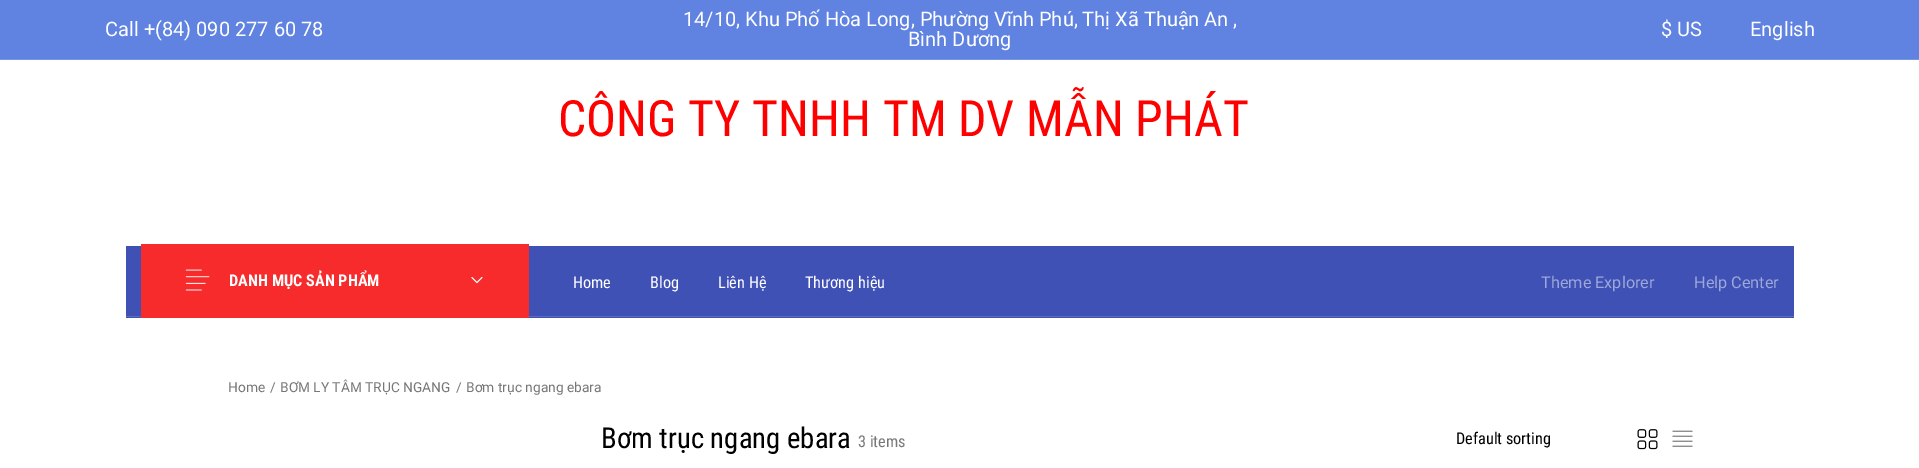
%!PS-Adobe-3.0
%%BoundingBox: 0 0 1919 468
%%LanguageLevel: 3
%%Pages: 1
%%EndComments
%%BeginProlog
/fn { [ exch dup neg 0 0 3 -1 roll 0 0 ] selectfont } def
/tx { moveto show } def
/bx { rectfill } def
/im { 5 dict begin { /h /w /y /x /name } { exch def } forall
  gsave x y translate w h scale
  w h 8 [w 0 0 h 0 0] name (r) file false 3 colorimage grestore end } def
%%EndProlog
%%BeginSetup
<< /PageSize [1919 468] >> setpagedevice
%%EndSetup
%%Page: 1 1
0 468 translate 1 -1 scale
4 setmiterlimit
0.376 0.514 0.886 setrgbcolor
0 0 1919 468 bx
/Roboto-Regular 20 fn
1 setgray
(Call +\(84\) 090 277 60 78) 105 36 tx
(14/10, Khu Phố Hòa Long, Phường Vĩnh Phú, Thị Xã Thuận An ,) 683 26 tx
(Bình Dương) 908 46 tx
($ US) 1661 36 tx
(English) 1750 36 tx
0.471 0.588 0.902 setrgbcolor
0 59 1919 1 bx
1 setgray
0 60 1919 408 bx
/RobotoCondensed-Regular 50 fn
1 0 0 setrgbcolor
(CÔNG TY TNHH TM DV MẪN PHÁT) 558 136 tx
0.247 0.318 0.71 setrgbcolor
126 246 1668 72 bx
0.357 0.42 0.753 setrgbcolor
126 316 1668 1 bx
0.969 0.169 0.169 setrgbcolor
141 244 388 74 bx
(image0.raw) 185 269 25 22 im
/RobotoCondensed-Bold 16.25 fn
1 setgray
(DANH MỤC SẢN PHẨM) 229 286 tx
(image1.raw) 471 277 12 7 im
/RobotoCondensed-Regular 16.25 fn
(Home) 573 288 tx
(Blog) 650 288 tx
(Liên Hệ) 718 288 tx
(Thương hiệu) 805 288 tx
/Roboto-Regular 16.25 fn
0.62 0.655 0.851 setrgbcolor
(Theme Explorer) 1541 288 tx
(Help Center) 1694 288 tx
/Roboto-Regular 13.75 fn
0.467 setgray
(Home) 228 392 tx
(/) 270 392 tx
(BƠM LY TÂM TRỤC NGANG) 280 392 tx
(/) 456 392 tx
(Bơm trục ngang ebara) 466 392 tx
/RobotoCondensed-Regular 28.75 fn
0 setgray
(Bơm trục ngang ebara) 601 448 tx
/RobotoCondensed-Regular 16.25 fn
0.467 setgray
(3 items) 858 447 tx
0 setgray
(Default sorting) 1456 444 tx
(image2.raw) 1637 429 21 21 im
(image3.raw) 1672 430 21 17 im
showpage
%%EOF
